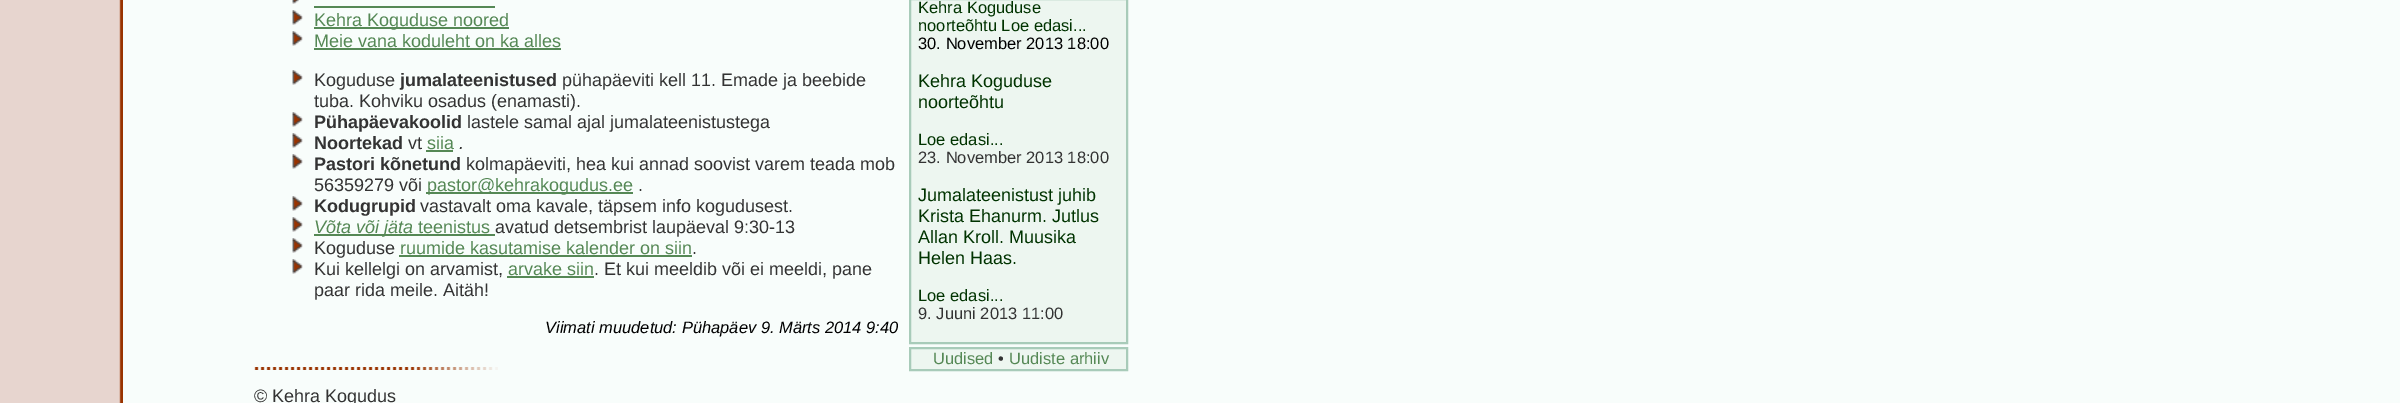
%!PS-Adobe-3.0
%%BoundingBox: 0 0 2400 403
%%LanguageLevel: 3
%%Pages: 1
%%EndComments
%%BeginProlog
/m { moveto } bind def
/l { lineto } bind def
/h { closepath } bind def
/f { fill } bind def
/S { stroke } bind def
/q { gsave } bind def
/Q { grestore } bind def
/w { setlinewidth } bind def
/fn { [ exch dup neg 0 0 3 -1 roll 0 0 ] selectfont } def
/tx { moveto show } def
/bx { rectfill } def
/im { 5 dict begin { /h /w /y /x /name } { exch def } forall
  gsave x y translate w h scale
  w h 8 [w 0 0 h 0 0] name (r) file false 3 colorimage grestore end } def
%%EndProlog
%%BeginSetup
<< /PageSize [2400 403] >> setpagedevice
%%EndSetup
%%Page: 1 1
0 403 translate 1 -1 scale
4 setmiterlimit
0.973 0.992 0.984 setrgbcolor
0 0 2400 403 bx
(image0.raw) 0 0 123 403 im
(image1.raw) 292 0 7 4 im
0.333 0.533 0.333 setrgbcolor
314 6 181 2 bx
(image2.raw) 292 10 11 15 im
314 27 195 2 bx
/LiberationSans-Regular 18 fn
(Kehra Koguduse noored) 314 26 tx
(image2.raw) 292 31 11 15 im
(Meie vana koduleht on ka alles) 314 47 tx
314 48 247 2 bx
(image2.raw) 292 70 11 15 im
0.2 setgray
(Koguduse) 314 86 tx
/LiberationSans-Bold 18 fn
(jumalateenistused) 400 86 tx
/LiberationSans-Regular 18 fn
(pühapäeviti kell 11. Emade ja beebide) 562 86 tx
(tuba. Kohviku osadus \(enamasti\).) 314 107 tx
(image2.raw) 292 112 11 15 im
/LiberationSans-Bold 18 fn
(Pühapäevakoolid) 314 128 tx
/LiberationSans-Regular 18 fn
(lastele samal ajal jumalateenistustega) 467 128 tx
(image2.raw) 292 133 11 15 im
/LiberationSans-Bold 18 fn
(Noortekad) 314 149 tx
/LiberationSans-Regular 18 fn
(vt) 408 149 tx
0.333 0.533 0.333 setrgbcolor
(siia) 427 149 tx
426 150 27 2 bx
/LiberationSans-Italic 18 fn
0.2 setgray
(.) 459 149 tx
(image2.raw) 292 154 11 15 im
/LiberationSans-Bold 18 fn
(Pastori kõnetund) 314 170 tx
/LiberationSans-Regular 18 fn
(kolmapäeviti, hea kui annad soovist varem teada mob) 466 170 tx
(56359279 või) 314 191 tx
0.333 0.533 0.333 setrgbcolor
426 192 207 2 bx
(pastor@kehrakogudus.ee) 427 191 tx
0.2 setgray
(.) 638 191 tx
(image2.raw) 292 196 11 15 im
/LiberationSans-Bold 18 fn
(Kodugrupid) 314 212 tx
/LiberationSans-Regular 18 fn
(vastavalt oma kavale, täpsem info kogudusest.) 420 212 tx
(image2.raw) 292 217 11 15 im
0.333 0.533 0.333 setrgbcolor
314 234 181 2 bx
/LiberationSans-Italic 18 fn
(Võta või jäta) 314 233 tx
/LiberationSans-Regular 18 fn
(teenistus) 418 233 tx
0.2 setgray
(avatud detsembrist laupäeval 9:30-13) 495 233 tx
(image2.raw) 292 238 11 15 im
(Koguduse) 314 254 tx
0.333 0.533 0.333 setrgbcolor
(ruumide kasutamise kalender on siin) 400 254 tx
399 255 293 2 bx
0.2 setgray
(.) 692 254 tx
(image2.raw) 292 259 11 15 im
(Kui kellelgi on arvamist,) 314 275 tx
0.333 0.533 0.333 setrgbcolor
(arvake siin) 508 275 tx
507 276 87 2 bx
0.2 setgray
(. Et kui meeldib või ei meeldi, pane) 594 275 tx
(paar rida meile. Aitäh!) 314 296 tx
/LiberationSans-Italic 16.5 fn
0 setgray
(Viimati muudetud: Pühapäev 9. Märts 2014 9:40) 545 333 tx
(image3.raw) 254 367 244 3 im
/LiberationSans-Regular 18 fn
0.2 setgray
(© Kehra Kogudus) 254 402 tx
0.929 0.965 0.941 setrgbcolor
910 -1 m 1127 -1 l 1127 343 l 910 343 l h q f Q
0.659 0.796 0.725 setrgbcolor
2 w
S
/LiberationSans-Regular 16.5 fn
0 0.2 0 setrgbcolor
(Kehra Koguduse) 918 13 tx
(noorteõhtu Loe edasi...) 918 31 tx
0 setgray
(30. November 2013 18:00) 918 49 tx
/LiberationSans-Regular 18 fn
0 0.2 0 setrgbcolor
(Kehra Koguduse) 918 87 tx
(noorteõhtu) 918 108 tx
/LiberationSans-Regular 16.5 fn
(Loe edasi...) 918 145 tx
0.2 setgray
(23. November 2013 18:00) 918 163 tx
/LiberationSans-Regular 18 fn
0 0.2 0 setrgbcolor
(Jumalateenistust juhib) 918 201 tx
(Krista Ehanurm. Jutlus) 918 222 tx
(Allan Kroll. Muusika) 918 243 tx
(Helen Haas.) 918 264 tx
/LiberationSans-Regular 16.5 fn
(Loe edasi...) 918 301 tx
0.2 setgray
(9. Juuni 2013 11:00) 918 319 tx
0.929 0.965 0.941 setrgbcolor
910 348 m 1127 348 l 1127 370 l 910 370 l h q f Q
0.659 0.796 0.725 setrgbcolor
S
0.333 0.533 0.333 setrgbcolor
(Uudised) 933 364 tx
0.2 setgray
(•) 998 364 tx
0.333 0.533 0.333 setrgbcolor
(Uudiste arhiiv) 1009 364 tx
showpage
%%EOF
